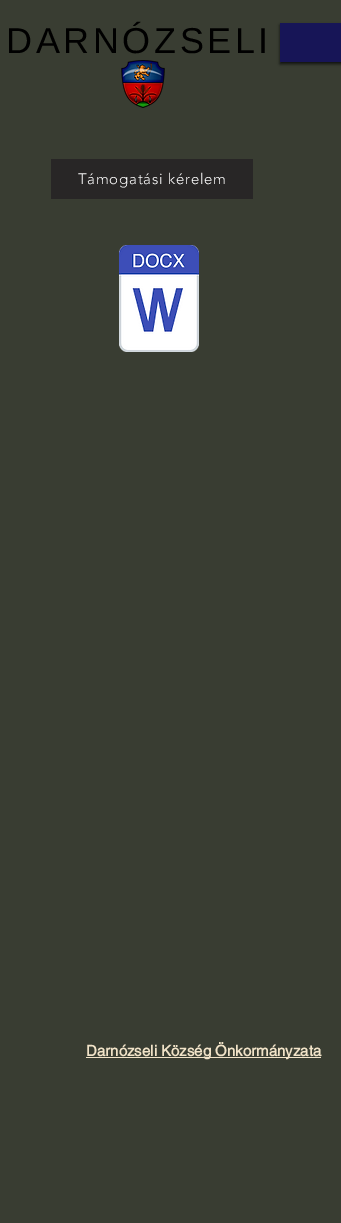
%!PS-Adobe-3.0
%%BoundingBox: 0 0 341 1223
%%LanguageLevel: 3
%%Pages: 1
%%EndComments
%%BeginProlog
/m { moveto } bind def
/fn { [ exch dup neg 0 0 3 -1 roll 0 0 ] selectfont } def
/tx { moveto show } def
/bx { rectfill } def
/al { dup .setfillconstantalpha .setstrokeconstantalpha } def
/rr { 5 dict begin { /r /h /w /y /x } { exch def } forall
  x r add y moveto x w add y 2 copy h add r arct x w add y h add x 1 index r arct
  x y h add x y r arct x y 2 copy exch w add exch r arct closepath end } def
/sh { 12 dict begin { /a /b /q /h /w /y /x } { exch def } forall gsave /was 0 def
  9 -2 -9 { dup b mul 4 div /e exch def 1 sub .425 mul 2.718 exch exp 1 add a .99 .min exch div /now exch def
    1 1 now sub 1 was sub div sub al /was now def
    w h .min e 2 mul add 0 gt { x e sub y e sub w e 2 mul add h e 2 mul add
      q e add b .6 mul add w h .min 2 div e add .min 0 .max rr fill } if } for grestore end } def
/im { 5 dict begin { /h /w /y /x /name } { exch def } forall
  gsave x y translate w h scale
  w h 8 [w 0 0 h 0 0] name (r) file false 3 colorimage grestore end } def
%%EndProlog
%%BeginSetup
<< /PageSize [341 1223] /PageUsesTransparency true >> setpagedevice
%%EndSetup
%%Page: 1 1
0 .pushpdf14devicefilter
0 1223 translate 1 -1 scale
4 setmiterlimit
0.224 0.239 0.196 setrgbcolor
0 0 341 1223 bx
/LiberationSans-Regular 36 fn
0 setgray
6 53 m 3.6 0 (DARNÓZSELI) ashow
280 25 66 39 0 1.5 0.7 sh
0.09 0.082 0.341 setrgbcolor
280 23 61 39 bx
(image0.raw) 121 60 44 48 im
0.157 0.149 0.149 setrgbcolor
51 159 202 40 bx
/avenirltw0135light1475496-Light 15 fn
1 setgray
78 184 m 0.75 0 (Támogatási kérelem) ashow
(image1.raw) 119 245 80 107 im
0.945 0.89 0.784 setrgbcolor
86 1057 235 1 bx
/helvetica-Bold 15 fn
(Darnózseli Község Önkormányzata) 86 1056 tx
.poppdf14devicefilter showpage
%%EOF
